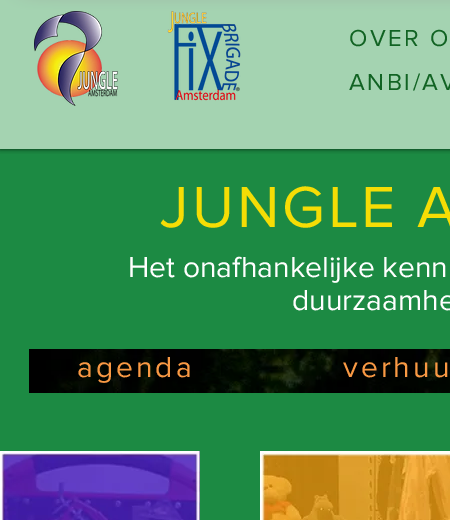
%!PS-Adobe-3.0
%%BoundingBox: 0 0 450 520
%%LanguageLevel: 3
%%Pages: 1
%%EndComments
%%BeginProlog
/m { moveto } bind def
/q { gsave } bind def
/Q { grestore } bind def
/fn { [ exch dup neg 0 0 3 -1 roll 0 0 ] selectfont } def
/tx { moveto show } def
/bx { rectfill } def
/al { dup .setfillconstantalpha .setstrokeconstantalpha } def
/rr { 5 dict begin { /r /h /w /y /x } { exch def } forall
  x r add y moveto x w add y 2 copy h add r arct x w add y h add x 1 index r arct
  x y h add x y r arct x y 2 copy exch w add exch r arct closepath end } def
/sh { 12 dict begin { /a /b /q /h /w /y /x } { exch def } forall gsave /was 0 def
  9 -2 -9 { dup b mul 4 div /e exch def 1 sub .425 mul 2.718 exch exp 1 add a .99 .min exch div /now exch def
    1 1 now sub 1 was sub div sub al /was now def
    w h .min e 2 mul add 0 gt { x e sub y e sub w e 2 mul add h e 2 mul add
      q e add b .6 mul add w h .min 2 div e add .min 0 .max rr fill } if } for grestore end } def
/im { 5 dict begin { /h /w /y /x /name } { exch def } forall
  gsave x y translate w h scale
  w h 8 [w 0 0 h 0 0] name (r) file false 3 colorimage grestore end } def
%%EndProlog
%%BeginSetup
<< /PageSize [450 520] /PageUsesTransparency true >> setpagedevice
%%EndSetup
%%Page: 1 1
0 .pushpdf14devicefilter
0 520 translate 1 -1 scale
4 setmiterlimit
0.11 0.541 0.263 setrgbcolor
0 0 450 520 bx
0.643 0.827 0.694 setrgbcolor
0 0 450 149 bx
(image0.raw) 5 0 95 11 im
(image1.raw) 100 0 350 11 im
q
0 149 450 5 rectclip
0 setgray
0 0 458 149 0 2.5 0.7 sh
Q
(image2.raw) 34 11 84 95 im
(image3.raw) 167 11 74 90 im
/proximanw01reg-Regular 24 fn
0.067 0.388 0.137 setrgbcolor
349 46 m 2.5 0 (OVER O) ashow
349 90 m 2.5 0 (ANBI/AV) ashow
/proximanw01reg-Regular 60 fn
0.961 0.867 0.02 setrgbcolor
160 227 m 3 0 (JUNGLE A) ashow
/proximanw01reg-Regular 30 fn
1 setgray
(Het onafhankelijke kenn) 128 277 tx
(duurzaamhe) 292 310 tx
(image4.raw) 29 349 421 44 im
0.976 0.6 0.267 setrgbcolor
77 377 m 3 0 (agenda) ashow
343 377 m 3 0 (verhuu) ashow
(image5.raw) 0 451 200 69 im
(image6.raw) 260 451 190 69 im
.poppdf14devicefilter showpage
%%EOF
